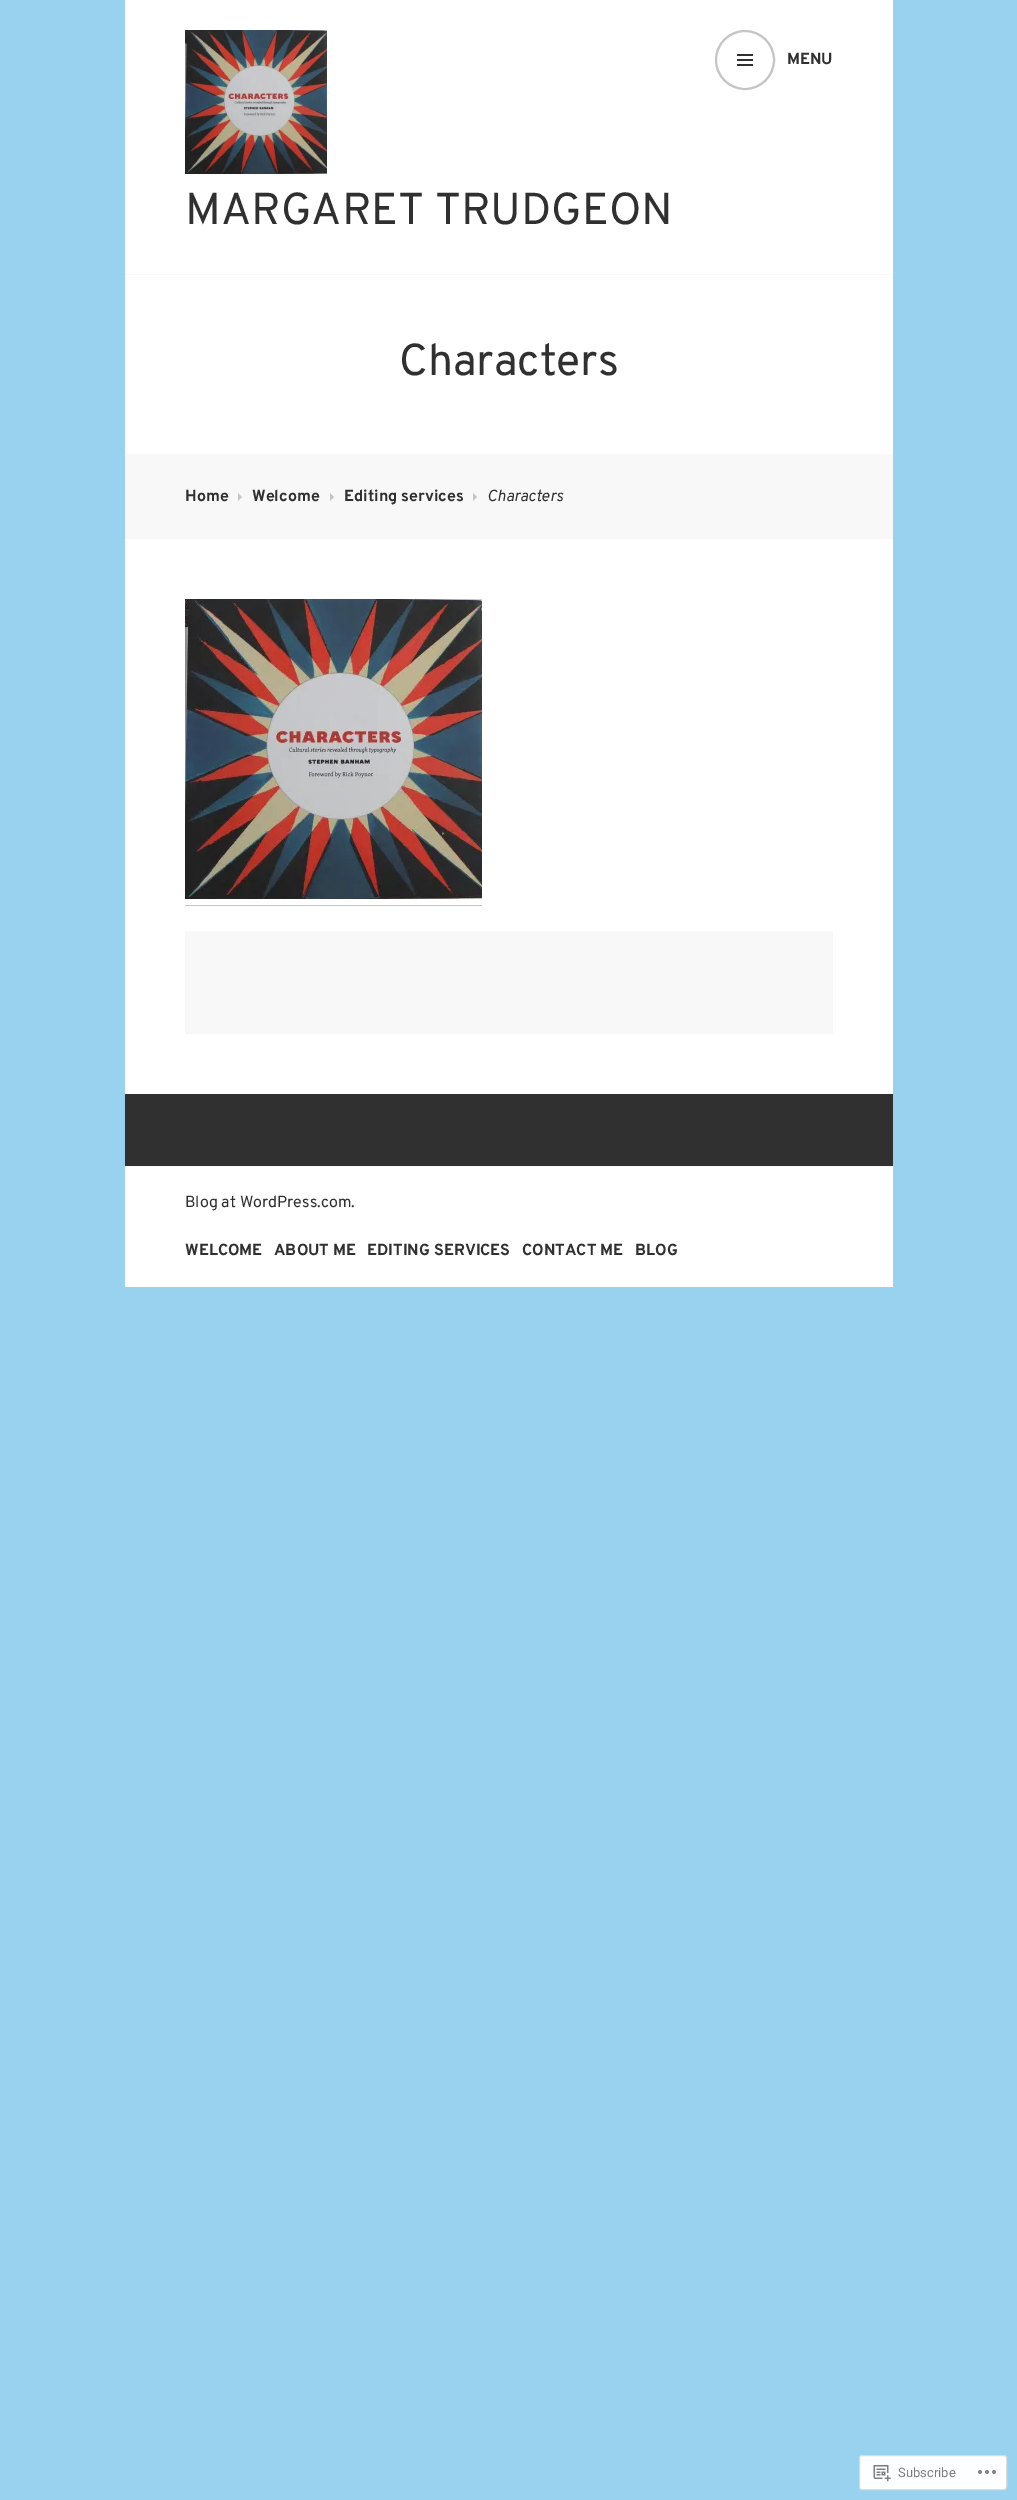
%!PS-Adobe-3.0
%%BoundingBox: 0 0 1017 2500
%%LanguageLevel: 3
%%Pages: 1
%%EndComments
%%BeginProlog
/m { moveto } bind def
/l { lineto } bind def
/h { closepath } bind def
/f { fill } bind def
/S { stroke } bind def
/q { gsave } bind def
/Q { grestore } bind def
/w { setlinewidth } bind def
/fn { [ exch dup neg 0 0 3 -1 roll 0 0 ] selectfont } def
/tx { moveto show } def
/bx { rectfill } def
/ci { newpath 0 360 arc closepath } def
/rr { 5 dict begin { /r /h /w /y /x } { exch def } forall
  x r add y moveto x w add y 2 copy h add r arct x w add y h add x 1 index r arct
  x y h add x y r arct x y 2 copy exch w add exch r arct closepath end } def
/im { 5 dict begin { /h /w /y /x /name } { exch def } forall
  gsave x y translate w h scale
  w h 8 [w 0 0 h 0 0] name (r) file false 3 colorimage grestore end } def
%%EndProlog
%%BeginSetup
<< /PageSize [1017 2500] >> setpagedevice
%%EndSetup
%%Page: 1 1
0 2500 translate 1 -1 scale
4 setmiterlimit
0.596 0.824 0.937 setrgbcolor
0 0 1017 2500 bx
1 setgray
125 0 768 274 bx
0.973 setgray
125 274 768 1 bx
0.773 setgray
2 w
745 60 29 ci S
(image0.raw) 737 54 16 12 im
/Overpass-Bold 16 fn
0.188 setgray
(MENU) 787 64 tx
(image1.raw) 185 30 142 144 im
/Overpass-Regular 44.6 fn
(MARGARET TRUDGEON) 185 224 tx
1 setgray
125 275 768 819 bx
0.973 setgray
125 454 768 85 bx
0.188 setgray
(Characters) 399 375 tx
/Overpass-Bold 16 fn
(Home) 185 501 tx
0.773 setgray
238 501 m 238 493 l 242 497 l h f
0.188 setgray
(Welcome) 252 501 tx
0.773 setgray
330 501 m 330 493 l 334 497 l h f
0.188 setgray
(Editing services) 344 501 tx
0.773 setgray
473 501 m 473 493 l 477 497 l h f
/Overpass-Italic 16 fn
0.188 setgray
(Characters) 487 501 tx
(image2.raw) 185 599 297 300 im
0.773 setgray
185 905 297 1 bx
0.973 setgray
185 931 648 103 bx
0.188 setgray
125 1094 768 72 bx
1 setgray
125 1167 768 120 bx
0.973 setgray
125 1166 768 1 bx
/Overpass-Regular 16 fn
0.188 setgray
(Blog at WordPress.com.) 185 1207 tx
/Overpass-Bold 16 fn
(WELCOME) 185 1255 tx
(ABOUT ME) 274 1255 tx
(EDITING SERVICES) 367 1255 tx
(CONTACT ME) 522 1255 tx
(BLOG) 635 1255 tx
0.992 0.996 1 setrgbcolor
859.5 2455.5 147 34 2.5 rr q f Q
0.859 0.863 0.871 setrgbcolor
1 w
S
(image3.raw) 873 2465 18 17 im
/Roboto-Regular 13 fn
0.475 0.494 0.518 setrgbcolor
(Subscribe) 898 2477 tx
(image4.raw) 978 2470 18 4 im
showpage
%%EOF
